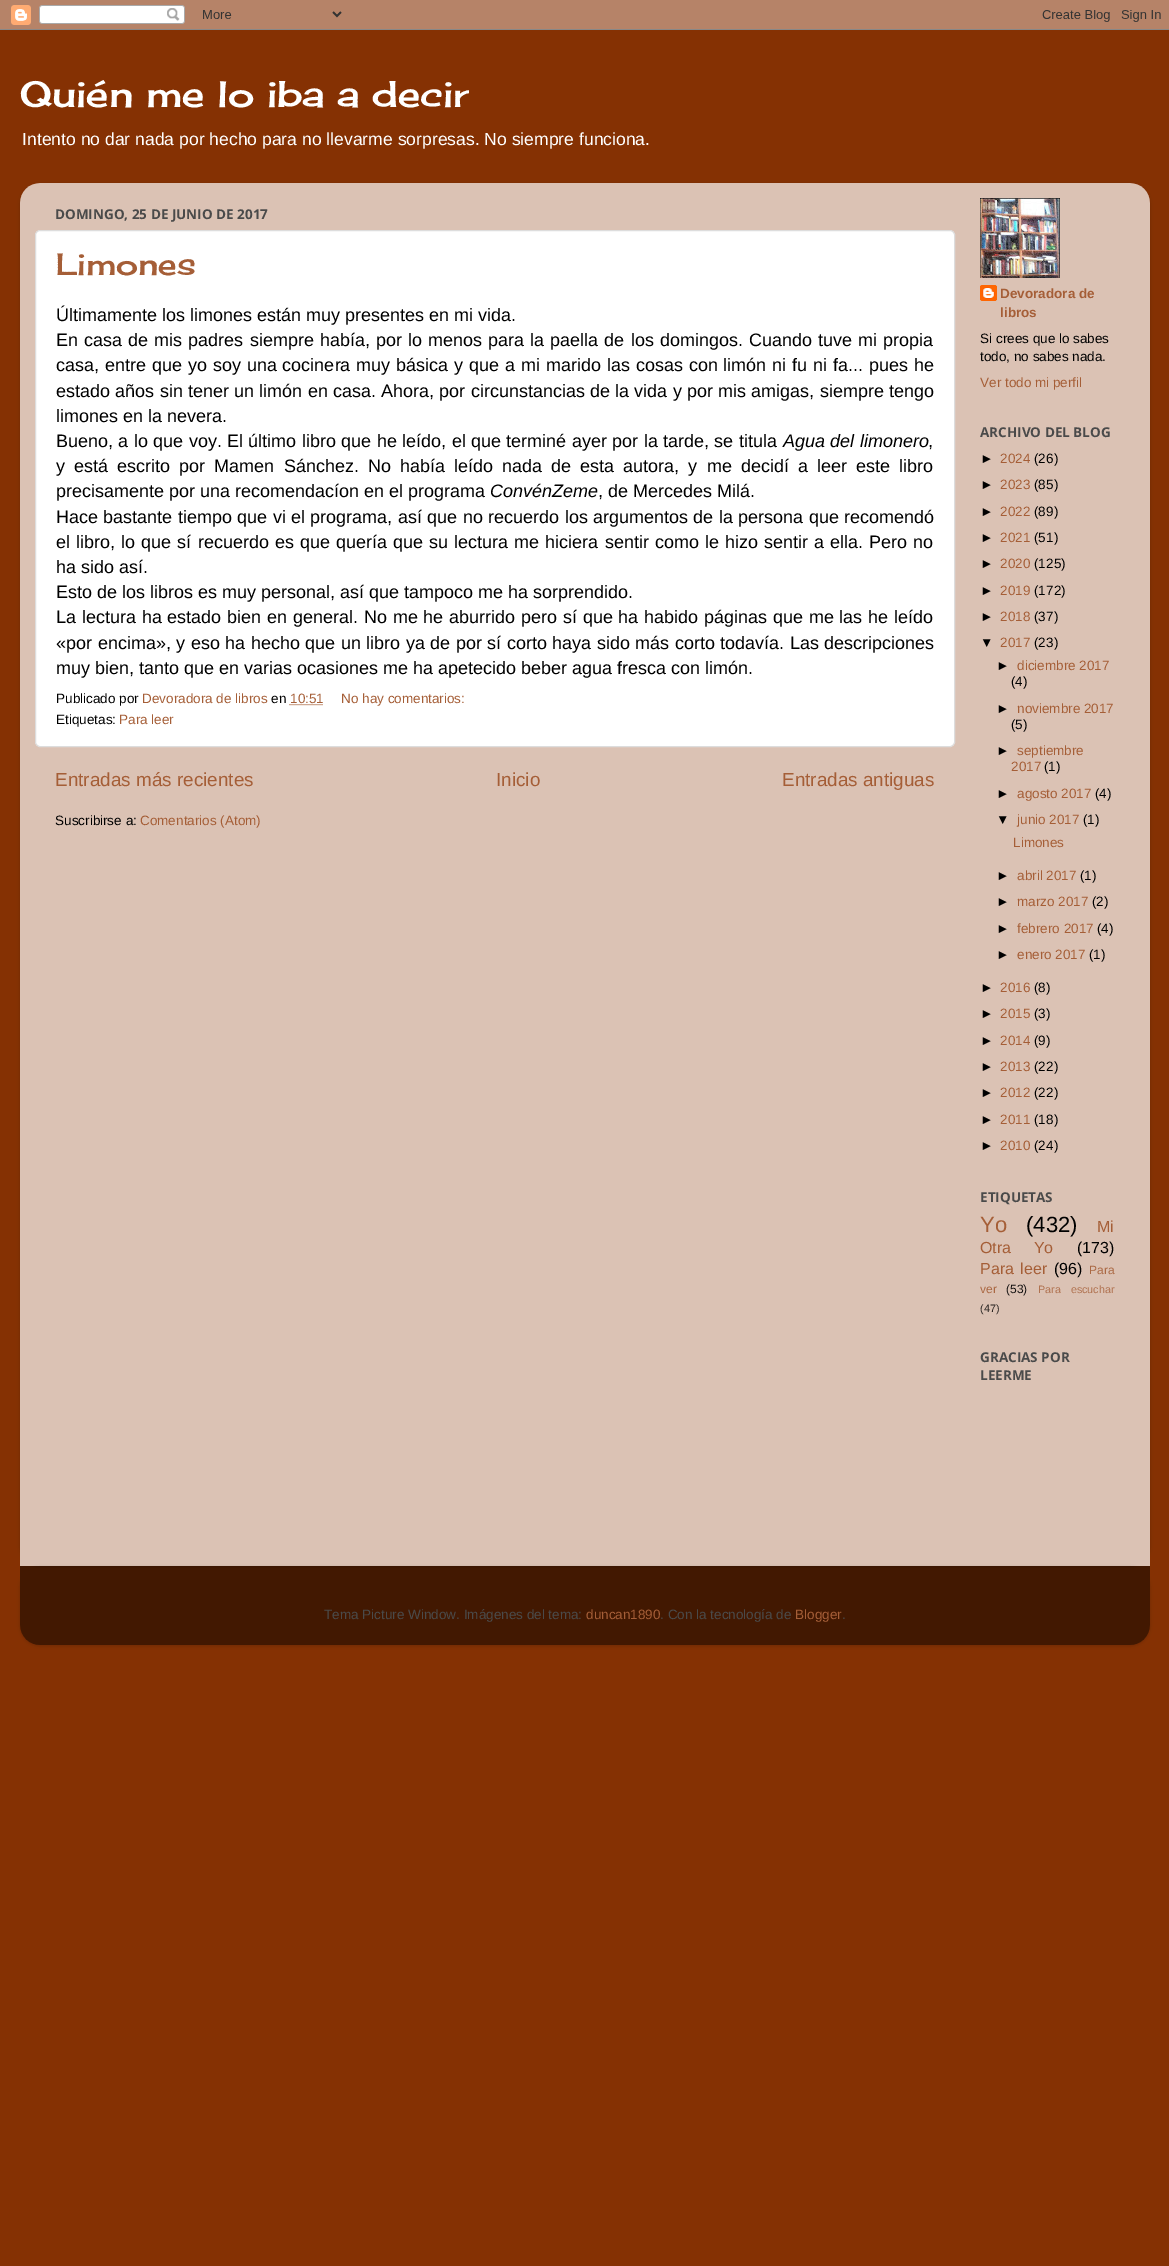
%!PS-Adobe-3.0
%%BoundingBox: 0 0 1169 2266
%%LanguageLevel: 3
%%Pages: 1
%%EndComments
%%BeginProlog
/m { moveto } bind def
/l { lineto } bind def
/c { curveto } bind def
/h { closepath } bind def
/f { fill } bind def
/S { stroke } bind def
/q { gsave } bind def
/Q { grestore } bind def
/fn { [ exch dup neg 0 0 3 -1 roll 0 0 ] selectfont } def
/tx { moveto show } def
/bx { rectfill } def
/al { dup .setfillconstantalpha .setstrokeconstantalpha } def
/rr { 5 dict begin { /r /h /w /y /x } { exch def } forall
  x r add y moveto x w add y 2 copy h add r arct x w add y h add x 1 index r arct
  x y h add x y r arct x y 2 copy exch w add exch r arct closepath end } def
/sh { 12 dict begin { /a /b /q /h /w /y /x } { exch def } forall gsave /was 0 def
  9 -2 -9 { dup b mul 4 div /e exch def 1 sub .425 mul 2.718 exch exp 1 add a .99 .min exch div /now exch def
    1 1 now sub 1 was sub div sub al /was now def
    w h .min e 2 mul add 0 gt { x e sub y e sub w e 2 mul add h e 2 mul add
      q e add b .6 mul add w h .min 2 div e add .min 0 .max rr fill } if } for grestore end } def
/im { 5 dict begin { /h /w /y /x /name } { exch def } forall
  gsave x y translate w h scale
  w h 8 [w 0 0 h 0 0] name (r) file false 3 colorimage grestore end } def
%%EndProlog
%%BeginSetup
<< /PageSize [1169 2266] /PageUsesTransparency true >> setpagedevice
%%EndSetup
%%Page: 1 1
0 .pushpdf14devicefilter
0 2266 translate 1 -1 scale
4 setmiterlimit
0.522 0.192 0.012 setrgbcolor
0 0 1169 2266 bx
(image0.raw) 0 0 1169 30 im
/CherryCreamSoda-Regular 36 fn
1 setgray
(Quién me lo iba a decir) 20 107 tx
/LiberationSans-Regular 17.55 fn
(Intento no dar nada por hecho para no llevarme sorpresas. No siempre funciona.) 22 145 tx
q
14 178 m 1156 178 l 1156 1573 l 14 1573 l h 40 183 m 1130 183 l 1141 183 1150 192 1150 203 c 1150 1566 l 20 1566 l 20 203 l 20 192 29 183 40 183 c h eoclip newpath
0 setgray
20 184 1130 1383 20 1.5 0.15 sh
Q
(image1.raw) 20 183 1130 1383 im
/OpenSans-Bold 13.5 fn
0.29 setgray
(DOMINGO, 25 DE JUNIO DE 2017) 55 219 tx
1 setgray
35.5 230.5 919 516 4.5 rr q f Q
0.867 setgray
S
/CherryCreamSoda-Regular 30 fn
0.647 0.369 0.216 setrgbcolor
(Limones) 56 275 tx
/LiberationSans-Regular 18 fn
0 setgray
(Últimamente los limones están muy presentes en mi vida.) 56 321 tx
56 346 m 1.1 0 32 (En casa de mis padres siempre había, por lo menos para la paella de los domingos. Cuando tuve mi propia) widthshow
56 371 m 0.9 0 32 (casa, entre que yo soy una cocinera muy básica y que a mi marido las cosas con limón ni fu ni fa... pues he) widthshow
56 397 m 0.25 0 32 (estado años sin tener un limón en casa. Ahora, por circunstancias de la vida y por mis amigas, siempre tengo) widthshow
(limones en la nevera.) 56 422 tx
56 447 m 0.4 0 32 (Bueno, a lo que voy. El último libro que he leído, el que terminé ayer por la tarde, se titula) widthshow
/LiberationSans-Italic 18 fn
783 447 m 0.4 0 32 (Agua del limonero) widthshow
/LiberationSans-Regular 18 fn
(,) 928 447 tx
56 472 m 4.1 0 32 (y está escrito por Mamen Sánchez. No había leído nada de esta autora, y me decidí a leer este libro) widthshow
(precisamente por una recomendacíon en el programa) 56 497 tx
/LiberationSans-Italic 18 fn
(ConvénZeme) 490 497 tx
/LiberationSans-Regular 18 fn
(, de Mercedes Milá.) 598 497 tx
56 523 m 0.4 0 32 (Hace bastante tiempo que vi el programa, así que no recuerdo los argumentos de la persona que recomendó) widthshow
56 548 m 1.1 0 32 (el libro, lo que sí recuerdo es que quería que su lectura me hiciera sentir como le hizo sentir a ella. Pero no) widthshow
(ha sido así.) 56 573 tx
(Esto de los libros es muy personal, así que tampoco me ha sorprendido.) 56 598 tx
56 623 m 0.8 0 32 (La lectura ha estado bien en general. No me he aburrido pero sí que ha habido páginas que me las he leído) widthshow
56 649 m 0.5 0 32 («por encima», y eso ha hecho que un libro ya de por sí corto haya sido más corto todavía. Las descripciones) widthshow
(muy bien, tanto que en varias ocasiones me ha apetecido beber agua fresca con limón.) 56 674 tx
/LiberationSans-Regular 13.5 fn
(Publicado por) 56 703 tx
0.647 0.369 0.216 setrgbcolor
(Devoradora de libros) 142 703 tx
0 setgray
(en) 271 703 tx
0.647 0.369 0.216 setrgbcolor
(10:51) 290 703 tx
[1 1] 0 setdash
289.5 704.5 m 323.5 704.5 l S
(No hay comentarios:) 341 703 tx
0 setgray
(Etiquetas:) 56 724 tx
0.647 0.369 0.216 setrgbcolor
(Para leer) 119 724 tx
/LiberationSans-Regular 18.9 fn
(Entradas más recientes) 55 786 tx
(Inicio) 496 786 tx
(Entradas antiguas) 782 786 tx
/LiberationSans-Regular 13.5 fn
0 setgray
(Suscribirse a:) 55 825 tx
0.647 0.369 0.216 setrgbcolor
(Comentarios \(Atom\)) 140 825 tx
(image2.raw) 980 198 80 80 im
(image3.raw) 980 285 17 16 im
/LiberationSans-Bold 13.5 fn
(Devoradora de) 1000 298 tx
(libros) 1000 317 tx
/LiberationSans-Regular 13.5 fn
0 setgray
(Si crees que lo sabes) 980 343 tx
(todo, no sabes nada.) 980 361 tx
0.647 0.369 0.216 setrgbcolor
(Ver todo mi perfil) 980 387 tx
/OpenSans-Bold 13.5 fn
0.29 setgray
(ARCHIVO DEL BLOG) 980 437 tx
/LiberationSans-Regular 13.5 fn
0 setgray
(►) 980 463 tx
0.647 0.369 0.216 setrgbcolor
(2024) 1000 463 tx
0 setgray
(\(26\)) 1034 463 tx
(►) 980 489 tx
0.647 0.369 0.216 setrgbcolor
(2023) 1000 489 tx
0 setgray
(\(85\)) 1034 489 tx
(►) 980 516 tx
0.647 0.369 0.216 setrgbcolor
(2022) 1000 516 tx
0 setgray
(\(89\)) 1034 516 tx
(►) 980 542 tx
0.647 0.369 0.216 setrgbcolor
(2021) 1000 542 tx
0 setgray
(\(51\)) 1034 542 tx
(►) 980 568 tx
0.647 0.369 0.216 setrgbcolor
(2020) 1000 568 tx
0 setgray
(\(125\)) 1034 568 tx
(►) 980 595 tx
0.647 0.369 0.216 setrgbcolor
(2019) 1000 595 tx
0 setgray
(\(172\)) 1034 595 tx
(►) 980 621 tx
0.647 0.369 0.216 setrgbcolor
(2018) 1000 621 tx
0 setgray
(\(37\)) 1034 621 tx
(▼) 980 647 tx
0.647 0.369 0.216 setrgbcolor
(2017) 1000 647 tx
0 setgray
(\(23\)) 1034 647 tx
(►) 996 670 tx
0.647 0.369 0.216 setrgbcolor
(diciembre 2017) 1017 670 tx
0 setgray
(\(4\)) 1011 686 tx
(►) 996 713 tx
0.647 0.369 0.216 setrgbcolor
(noviembre 2017) 1017 713 tx
0 setgray
(\(5\)) 1011 729 tx
(►) 996 755 tx
0.647 0.369 0.216 setrgbcolor
(septiembre) 1017 755 tx
(2017) 1011 771 tx
0 setgray
(\(1\)) 1044 771 tx
(►) 996 798 tx
0.647 0.369 0.216 setrgbcolor
(agosto 2017) 1017 798 tx
0 setgray
(\(4\)) 1095 798 tx
(▼) 996 824 tx
0.647 0.369 0.216 setrgbcolor
(junio 2017) 1017 824 tx
0 setgray
(\(1\)) 1083 824 tx
0.647 0.369 0.216 setrgbcolor
(Limones) 1013 847 tx
0 setgray
(►) 996 880 tx
0.647 0.369 0.216 setrgbcolor
(abril 2017) 1017 880 tx
0 setgray
(\(1\)) 1080 880 tx
(►) 996 906 tx
0.647 0.369 0.216 setrgbcolor
(marzo 2017) 1017 906 tx
0 setgray
(\(2\)) 1092 906 tx
(►) 996 933 tx
0.647 0.369 0.216 setrgbcolor
(febrero 2017) 1017 933 tx
0 setgray
(\(4\)) 1097 933 tx
(►) 996 959 tx
0.647 0.369 0.216 setrgbcolor
(enero 2017) 1017 959 tx
0 setgray
(\(1\)) 1089 959 tx
(►) 980 992 tx
0.647 0.369 0.216 setrgbcolor
(2016) 1000 992 tx
0 setgray
(\(8\)) 1034 992 tx
(►) 980 1018 tx
0.647 0.369 0.216 setrgbcolor
(2015) 1000 1018 tx
0 setgray
(\(3\)) 1034 1018 tx
(►) 980 1045 tx
0.647 0.369 0.216 setrgbcolor
(2014) 1000 1045 tx
0 setgray
(\(9\)) 1034 1045 tx
(►) 980 1071 tx
0.647 0.369 0.216 setrgbcolor
(2013) 1000 1071 tx
0 setgray
(\(22\)) 1034 1071 tx
(►) 980 1097 tx
0.647 0.369 0.216 setrgbcolor
(2012) 1000 1097 tx
0 setgray
(\(22\)) 1034 1097 tx
(►) 980 1124 tx
0.647 0.369 0.216 setrgbcolor
(2011) 1000 1124 tx
0 setgray
(\(18\)) 1034 1124 tx
(►) 980 1150 tx
0.647 0.369 0.216 setrgbcolor
(2010) 1000 1150 tx
0 setgray
(\(24\)) 1034 1150 tx
/OpenSans-Bold 13.5 fn
0.29 setgray
(ETIQUETAS) 980 1202 tx
/LiberationSans-Regular 22 fn
0.647 0.369 0.216 setrgbcolor
(Yo) 980 1232 tx
0 setgray
(\(432\)) 1026 1232 tx
/LiberationSans-Regular 16 fn
0.647 0.369 0.216 setrgbcolor
(Mi) 1097 1232 tx
980 1253 m 18 0 32 (Otra Yo) widthshow
0 setgray
(\(173\)) 1077 1253 tx
0.647 0.369 0.216 setrgbcolor
980 1274 m 2 0 32 (Para leer) widthshow
0 setgray
(\(96\)) 1054 1274 tx
/LiberationSans-Regular 12 fn
0.667 0.408 0.263 setrgbcolor
(Para) 1089 1274 tx
(ver) 980 1293 tx
0.086 0.075 0.071 setrgbcolor
(\(53\)) 1006 1293 tx
/LiberationSans-Regular 10.75 fn
0.69 0.447 0.314 setrgbcolor
1038 1293 m 7 0 32 (Para escuchar) widthshow
0.173 0.153 0.141 setrgbcolor
(\(47\)) 980 1312 tx
/OpenSans-Bold 13.5 fn
0.29 setgray
(GRACIAS POR) 980 1362 tx
(LEERME) 980 1380 tx
q
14 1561 m 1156 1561 l 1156 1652 l 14 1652 l h 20 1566 m 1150 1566 l 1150 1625 l 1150 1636 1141 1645 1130 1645 c 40 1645 l 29 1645 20 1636 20 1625 c h eoclip newpath
0 setgray
20 1567 1130 79 20 1.5 0.15 sh
Q
(image4.raw) 20 1566 1130 79 im
/LiberationSans-Regular 13.5 fn
(Tema Picture Window. Imágenes del tema:) 324 1619 tx
0.647 0.369 0.216 setrgbcolor
(duncan1890) 586 1619 tx
0.29 setgray
(. Con la tecnología de) 660 1619 tx
0.647 0.369 0.216 setrgbcolor
(Blogger) 795 1619 tx
0.29 setgray
(.) 842 1619 tx
.poppdf14devicefilter showpage
%%EOF
